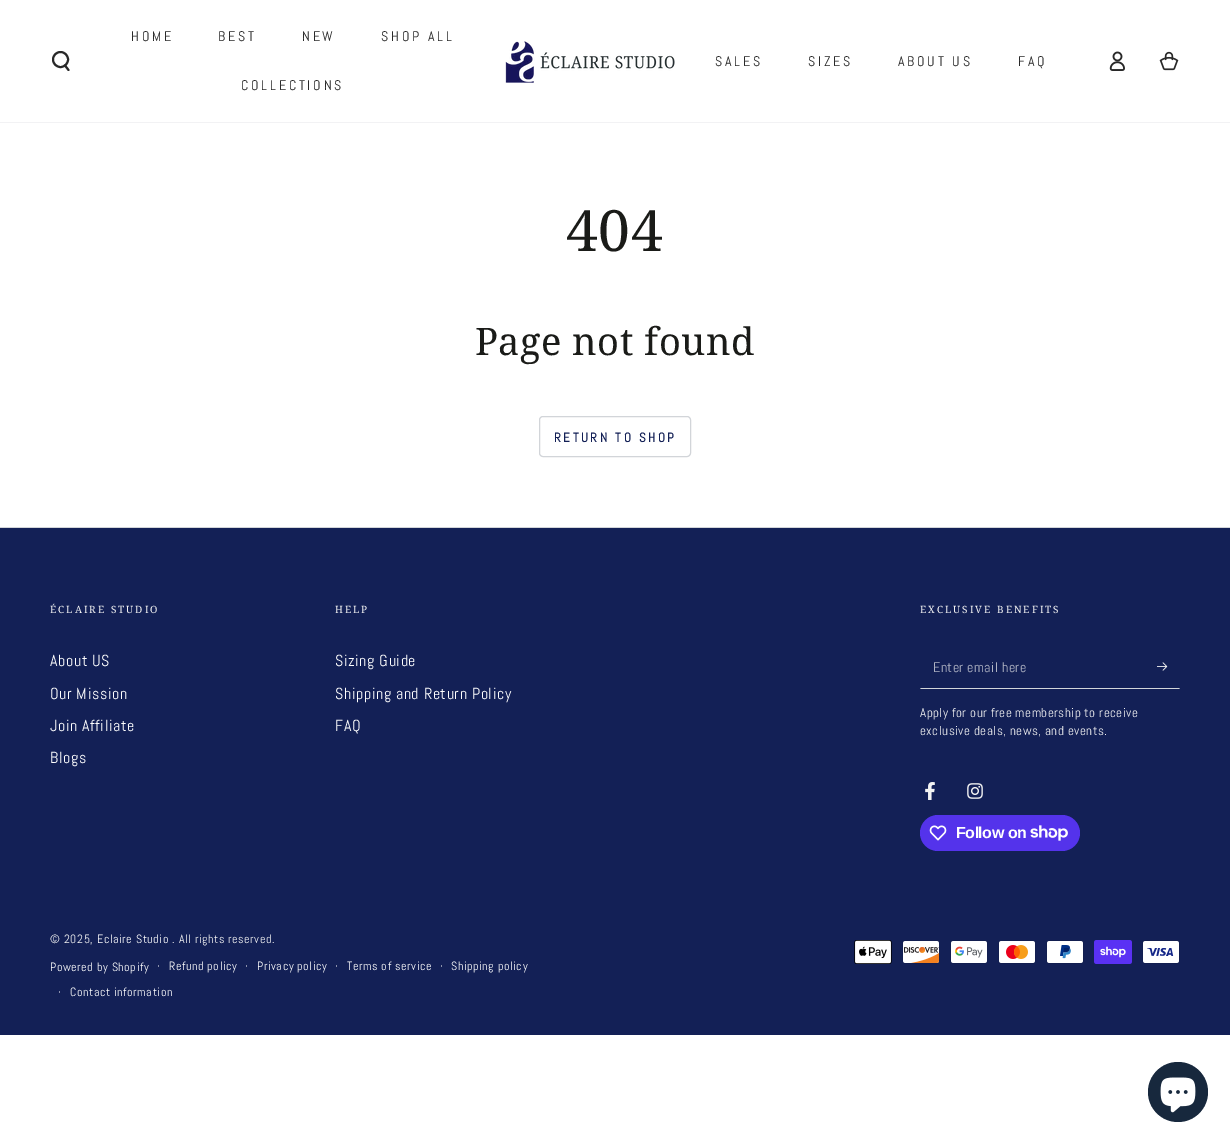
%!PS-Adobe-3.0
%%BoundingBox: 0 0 1230 1143
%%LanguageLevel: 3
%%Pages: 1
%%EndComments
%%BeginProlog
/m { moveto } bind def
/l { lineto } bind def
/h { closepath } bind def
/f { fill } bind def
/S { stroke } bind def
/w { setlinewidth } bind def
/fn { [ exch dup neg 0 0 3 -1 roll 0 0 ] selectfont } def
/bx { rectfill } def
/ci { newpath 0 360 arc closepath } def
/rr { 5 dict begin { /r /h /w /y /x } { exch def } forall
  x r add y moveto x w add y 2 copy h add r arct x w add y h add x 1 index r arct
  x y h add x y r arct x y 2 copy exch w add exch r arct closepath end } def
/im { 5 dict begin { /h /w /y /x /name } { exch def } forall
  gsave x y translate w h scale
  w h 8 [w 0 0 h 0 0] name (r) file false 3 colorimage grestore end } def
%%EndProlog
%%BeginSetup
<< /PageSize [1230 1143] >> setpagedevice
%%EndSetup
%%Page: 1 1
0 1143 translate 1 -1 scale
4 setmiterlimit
1 setgray
0 0 1230 1143 bx
0.949 0.949 0.957 setrgbcolor
0 122 1230 1 bx
0.157 setgray
2 w
60.5 59.5 7.5 ci S
1 setlinecap
65 65.5 m 68.5 70 l S
/Abel-Regular 14 fn
131 41 m 2.75 0 (HOME) ashow
218 41 m 2.75 0 (BEST) ashow
302 41 m 2.75 0 (NEW) ashow
381 41 m 2.75 0 (SHOP ALL) ashow
241 90 m 2.75 0 (COLLECTIONS) ashow
(image0.raw) 505 41 170 42 im
715 66 m 2.75 0 (SALES) ashow
808 66 m 2.75 0 (SIZES) ashow
898 66 m 2.75 0 (ABOUT US) ashow
1018 66 m 2.75 0 (FAQ) ashow
(image1.raw) 1109 51 16 20 im
(image2.raw) 1159 51 20 20 im
/NotoSerif-Regular 57 fn
0.102 0.106 0.094 setrgbcolor
566 251 m 0.5 0 (404) ashow
/NotoSerif-Regular 38 fn
475 355 m 0.5 0 (Page not found) ashow
0.824 0.835 0.851 setrgbcolor
1 w
0 setlinecap
539.5 416.5 151 40 3.5 rr S
/Abel-Bold 13 fn
0.075 0.125 0.337 setrgbcolor
554 442 m 2.6 0 (RETURN TO SHOP) ashow
0 528 1230 507 bx
0.824 0.835 0.851 setrgbcolor
0 527 1230 1 bx
/NotoSerif-Regular 10 fn
0.953 setgray
50 613 m 2 0 (ÉCLAIRE STUDIO) ashow
/Abel-Regular 16 fn
1 setgray
50 666 m 0.6 0 (About US) ashow
50 699 m 0.6 0 (Our Mission) ashow
50 731 m 0.6 0 (Join Affiliate) ashow
50 763 m 0.6 0 (Blogs) ashow
/NotoSerif-Regular 10 fn
0.953 setgray
335 613 m 2 0 (HELP) ashow
/Abel-Regular 16 fn
1 setgray
335 666 m 0.6 0 (Sizing Guide) ashow
335 699 m 0.6 0 (Shipping and Return Policy) ashow
335 731 m 0.6 0 (FAQ) ashow
/NotoSerif-Regular 10 fn
0.953 setgray
920 613 m 2 0 (EXCLUSIVE BENEFITS) ashow
0.824 0.835 0.851 setrgbcolor
1180 689 m 920 689 l 921 688 l 1179 688 l h f
/Abel-Regular 14 fn
0.69 0.706 0.769 setrgbcolor
933 672 m 0.4 0 (Enter email here) ashow
(image3.raw) 1157 662 11 9 im
/Abel-Regular 13 fn
0.953 setgray
920 717 m 0.5 0 (Apply for our free membership to receive) ashow
920 735 m 0.5 0 (exclusive deals, news, and events.) ashow
(image4.raw) 925 782 10 18 im
(image5.raw) 967 783 16 16 im
0.329 0.2 0.922 setrgbcolor
920 815 160 36 18 rr f
(image6.raw) 929 825 18 16 im
/LiberationSans-Bold 16 fn
1 setgray
956 838 m -0.5 0 (Follow on) ashow
(image7.raw) 1030 825 38 16 im
/Abel-Regular 12 fn
0.953 setgray
50 943 m 0.6 0 (© 2025,) ashow
1 setgray
97 943 m 0.6 0 (Eclaire Studio) ashow
0.953 setgray
172 943 m 0.6 0 (. All rights reserved.) ashow
1 setgray
50 971 m 0.6 0 (Powered by Shopify) ashow
/Abel-Regular 14 fn
0.953 setgray
157 971 m 0.6 0 (·) ashow
/Abel-Regular 12 fn
1 setgray
169 970 m 0.6 0 (Refund policy) ashow
/Abel-Regular 14 fn
0.953 setgray
245 971 m 0.6 0 (·) ashow
/Abel-Regular 12 fn
1 setgray
257 970 m 0.6 0 (Privacy policy) ashow
/Abel-Regular 14 fn
0.953 setgray
335 971 m 0.6 0 (·) ashow
/Abel-Regular 12 fn
1 setgray
347 970 m 0.6 0 (Terms of service) ashow
/Abel-Regular 14 fn
0.953 setgray
440 971 m 0.6 0 (·) ashow
/Abel-Regular 12 fn
1 setgray
451 970 m 0.6 0 (Shipping policy) ashow
/Abel-Regular 14 fn
0.953 setgray
58 997 m 0.6 0 (·) ashow
/Abel-Regular 12 fn
1 setgray
70 996 m 0.6 0 (Contact information) ashow
(image8.raw) 854 940 38 24 im
(image9.raw) 902 940 38 24 im
(image10.raw) 950 940 38 24 im
(image11.raw) 998 940 38 24 im
(image12.raw) 1046 940 38 24 im
(image13.raw) 1094 940 38 24 im
(image14.raw) 1142 940 38 24 im
0.09 0.157 0.239 setrgbcolor
1178 1092 30 ci f
(image15.raw) 1160 1077 36 36 im
showpage
%%EOF
